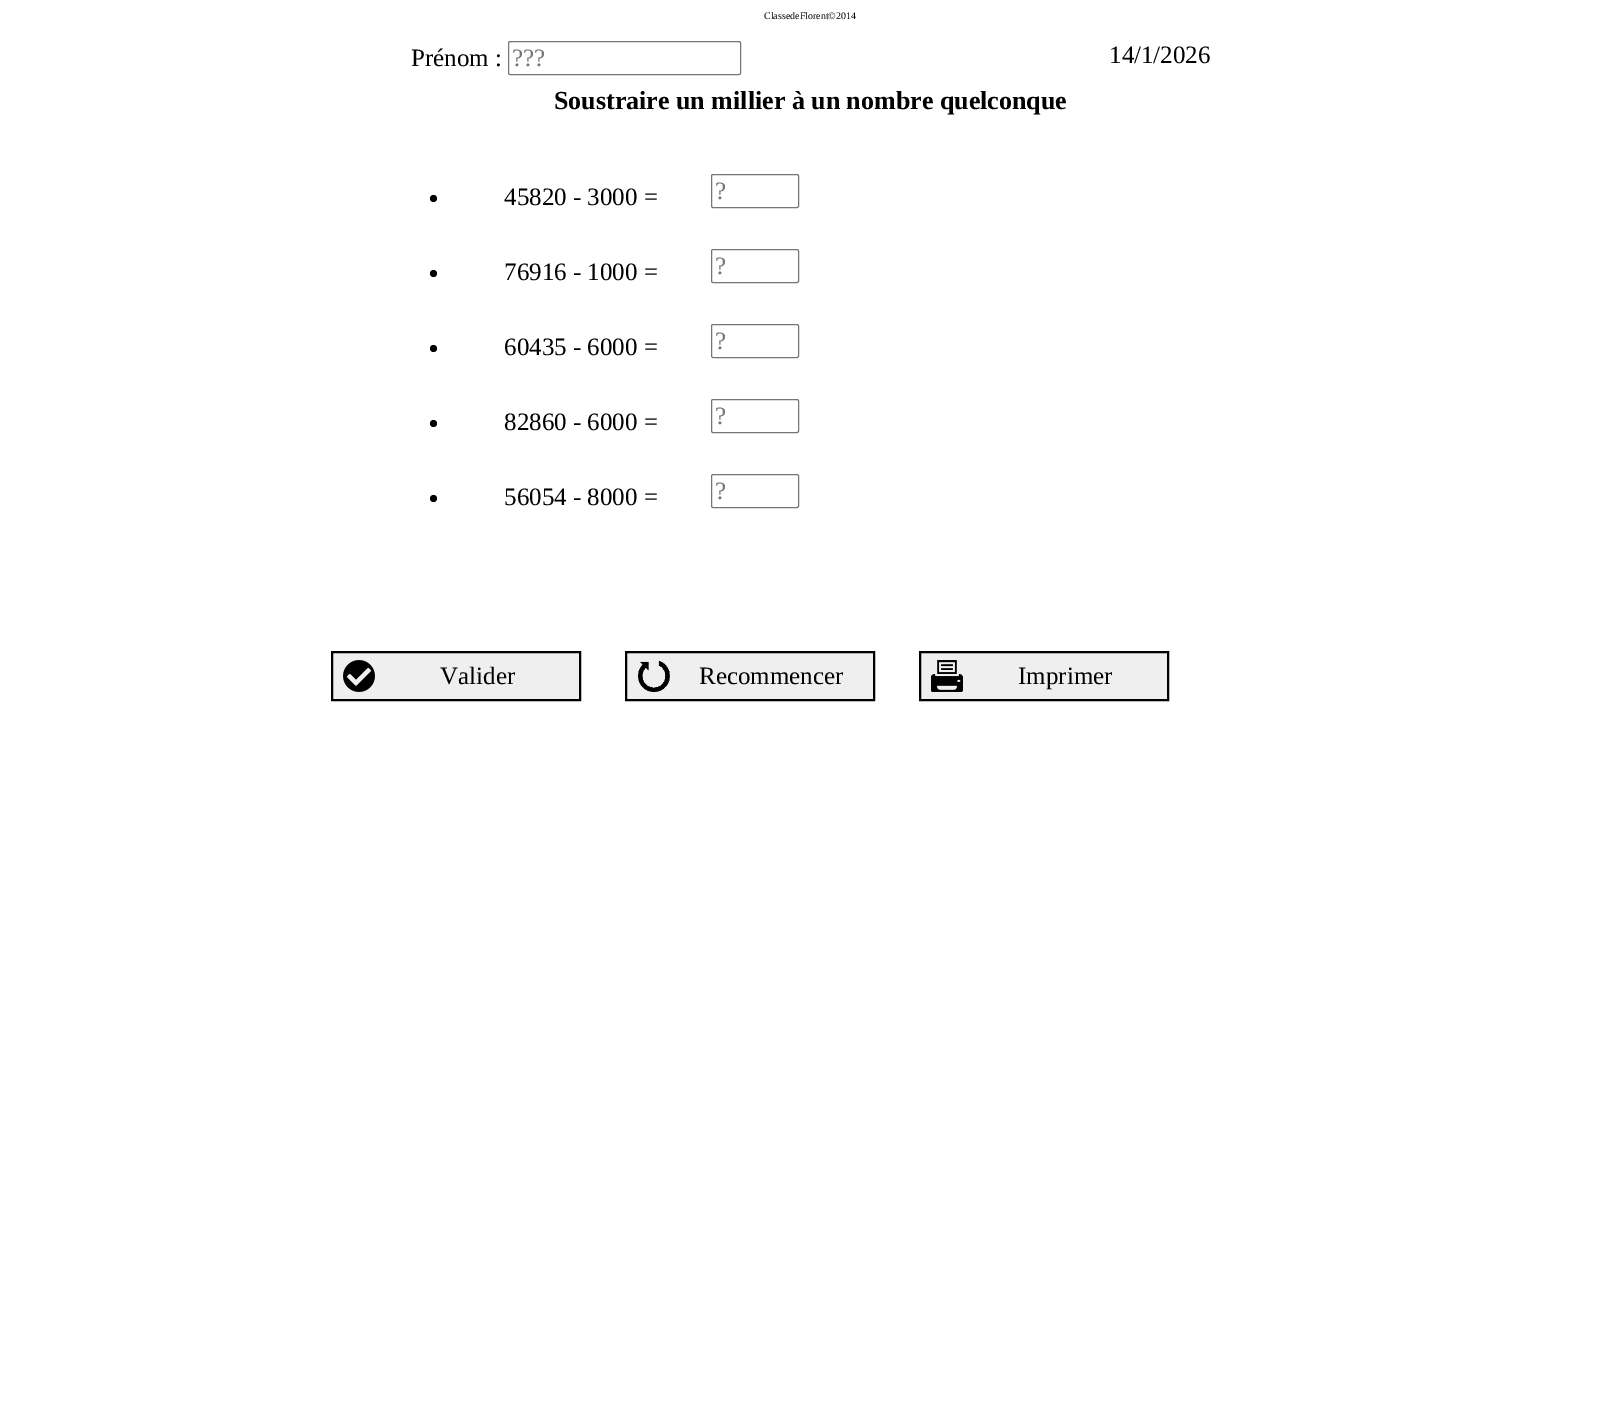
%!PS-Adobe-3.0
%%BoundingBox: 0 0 1621 1416
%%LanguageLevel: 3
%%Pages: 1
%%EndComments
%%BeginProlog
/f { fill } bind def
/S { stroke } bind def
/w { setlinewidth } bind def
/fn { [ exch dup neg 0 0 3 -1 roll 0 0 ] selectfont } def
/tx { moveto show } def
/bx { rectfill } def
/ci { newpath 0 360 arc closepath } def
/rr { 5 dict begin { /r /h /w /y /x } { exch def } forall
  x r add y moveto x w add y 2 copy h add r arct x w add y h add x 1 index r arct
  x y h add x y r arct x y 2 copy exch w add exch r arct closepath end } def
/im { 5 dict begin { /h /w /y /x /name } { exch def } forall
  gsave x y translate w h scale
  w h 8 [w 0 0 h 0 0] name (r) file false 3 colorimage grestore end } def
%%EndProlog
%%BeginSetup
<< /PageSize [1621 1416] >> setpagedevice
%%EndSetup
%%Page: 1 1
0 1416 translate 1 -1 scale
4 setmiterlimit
1 setgray
0 0 1621 1416 bx
/LiberationSerif-Regular 10 fn
0 setgray
(ClassedeFlorent©2014) 764 19 tx
/LiberationSerif-Regular 25 fn
(Prénom :) 411 66 tx
0.463 setgray
508.5 41.5 232 33 1.5 rr S
0.459 setgray
(???) 512 66 tx
0 setgray
(14/1/2026) 1109 63 tx
/LiberationSerif-Bold 26 fn
(Soustraire un millier à un nombre quelconque) 554 109 tx
433.5 198.5 3.5 ci f
/LiberationSerif-Regular 25 fn
(45820 - 3000 =) 504 205 tx
433.5 273.5 3.5 ci f
(76916 - 1000 =) 504 280 tx
433.5 348.5 3.5 ci f
(60435 - 6000 =) 504 355 tx
433.5 423.5 3.5 ci f
(82860 - 6000 =) 504 430 tx
433.5 498.5 3.5 ci f
(56054 - 8000 =) 504 505 tx
0.463 setgray
711.5 174.5 87 33 1.5 rr S
0.459 setgray
(?) 715 199 tx
0.463 setgray
711.5 249.5 87 33 1.5 rr S
0.459 setgray
(?) 715 274 tx
0.463 setgray
711.5 324.5 87 33 1.5 rr S
0.459 setgray
(?) 715 349 tx
0.463 setgray
711.5 399.5 87 33 1.5 rr S
0.459 setgray
(?) 715 424 tx
0.463 setgray
711.5 474.5 87 33 1.5 rr S
0.459 setgray
(?) 715 499 tx
0.937 setgray
333 653 246 46 bx
(image0.raw) 343 660 32 32 im
0 setgray
2 w
332 652 248 48 rectstroke
(Valider) 440 684 tx
0.937 setgray
627 653 246 46 bx
(image1.raw) 638 661 32 31 im
0 setgray
626 652 248 48 rectstroke
(Recommencer) 699 684 tx
0.937 setgray
921 653 246 46 bx
(image2.raw) 931 660 32 32 im
0 setgray
920 652 248 48 rectstroke
(Imprimer) 1018 684 tx
showpage
%%EOF
